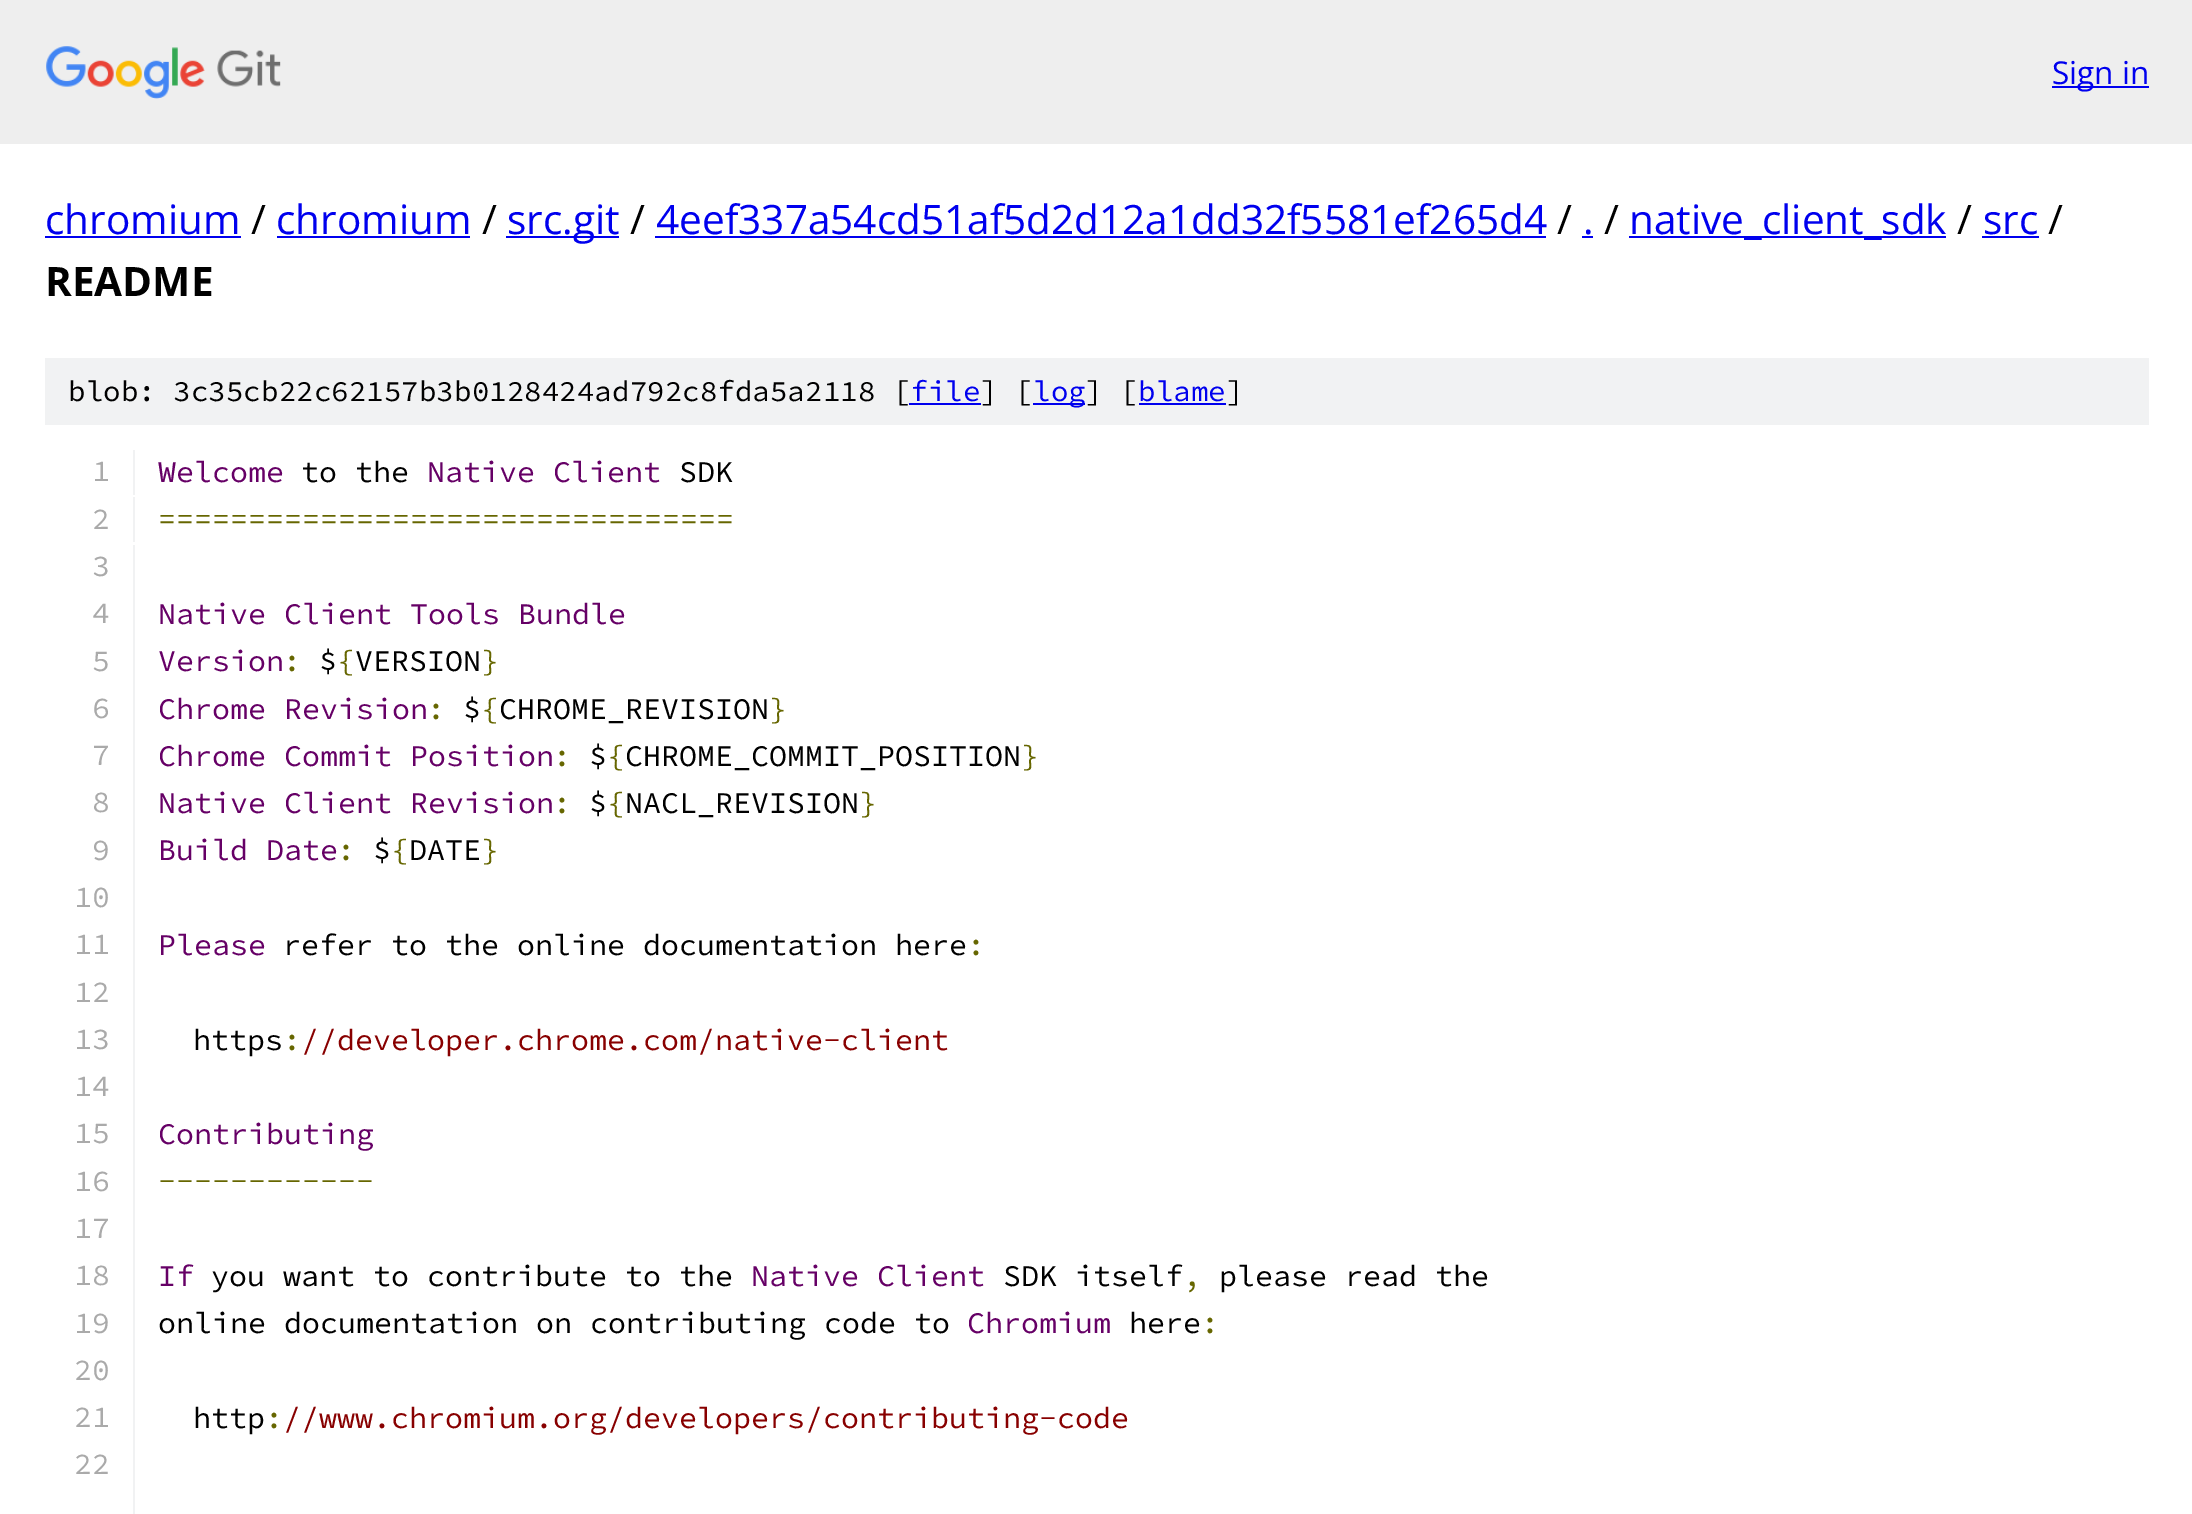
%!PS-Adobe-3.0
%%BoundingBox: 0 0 2192 1514
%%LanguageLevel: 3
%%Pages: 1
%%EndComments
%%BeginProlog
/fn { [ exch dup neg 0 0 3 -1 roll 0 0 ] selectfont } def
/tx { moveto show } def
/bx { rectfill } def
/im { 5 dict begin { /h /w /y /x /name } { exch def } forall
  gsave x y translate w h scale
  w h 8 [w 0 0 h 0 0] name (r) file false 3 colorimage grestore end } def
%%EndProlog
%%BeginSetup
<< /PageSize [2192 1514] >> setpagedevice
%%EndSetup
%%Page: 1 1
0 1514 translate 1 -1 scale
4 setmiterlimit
1 setgray
0 0 2192 1514 bx
0.933 setgray
0 0 2192 144 bx
(image0.raw) 46 46 235 53 im
0 0 0.933 setrgbcolor
2052 86 97 2 bx
/OpenSans-Regular 31.5 fn
(Sign in) 2052 84 tx
/OpenSans-Regular 40.5 fn
(chromium) 45 234 tx
45 236 196 2 bx
0 setgray
(/) 251 234 tx
0 0 0.933 setrgbcolor
(chromium) 276 234 tx
277 236 193 2 bx
0 setgray
(/) 482 234 tx
0 0 0.933 setrgbcolor
506 236 113 2 bx
(src.git) 507 234 tx
0 setgray
(/) 630 234 tx
0 0 0.933 setrgbcolor
(4eef337a54cd51af5d2d12a1dd32f5581ef265d4) 656 234 tx
655 236 891 2 bx
0 setgray
(/) 1557 234 tx
0 0 0.933 setrgbcolor
(.) 1583 234 tx
1582 236 11 2 bx
0 setgray
(/) 1604 234 tx
0 0 0.933 setrgbcolor
1629 236 317 2 bx
(native_client_sdk) 1629 234 tx
0 setgray
(/) 1957 234 tx
0 0 0.933 setrgbcolor
(src) 1983 234 tx
1982 236 57 2 bx
0 setgray
(/) 2048 234 tx
/OpenSans-Bold 40.5 fn
(README) 45 296 tx
0.945 0.949 0.953 setrgbcolor
45 358 2104 67 bx
/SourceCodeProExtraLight-ExtraLight 29.25 fn
0 setgray
(blob: 3c35cb22c62157b3b0128424ad792c8fda5a2118 [) 68 401 tx
0 0 0.933 setrgbcolor
(file) 910 401 tx
909 403 72 2 bx
0 setgray
(] [) 980 401 tx
0 0 0.933 setrgbcolor
1033 403 52 2 bx
(log) 1033 401 tx
0 setgray
(] [) 1085 401 tx
0 0 0.933 setrgbcolor
(blame) 1138 401 tx
1139 403 87 2 bx
0 setgray
(]) 1226 401 tx
0.945 0.949 0.953 setrgbcolor
133 450 2 45 bx
/SourceCodeProExtraLight-ExtraLight 30 fn
0.667 setgray
(1) 92 481 tx
0.4 0 0.4 setrgbcolor
(Welcome) 158 482 tx
0 setgray
(to the) 301 482 tx
0.4 0 0.4 setrgbcolor
(Native Client) 427 482 tx
0 setgray
(SDK) 679 482 tx
0.945 0.949 0.953 setrgbcolor
133 497 2 45 bx
0.667 setgray
(2) 92 529 tx
0.4 0.4 0 setrgbcolor
(================================) 158 529 tx
0.945 0.949 0.953 setrgbcolor
133 545 2 969 bx
0.667 setgray
(3) 92 576 tx
(4) 92 623 tx
0.4 0 0.4 setrgbcolor
(Native Client Tools Bundle) 158 624 tx
0.667 setgray
(5) 92 671 tx
0.4 0 0.4 setrgbcolor
(Version) 158 671 tx
0 setgray
($ VERSION) 319 671 tx
0.4 0.4 0 setrgbcolor
(:) 283 671 tx
({) 337 671 tx
(}) 481 671 tx
0.667 setgray
(6) 92 718 tx
0.4 0 0.4 setrgbcolor
(Chrome Revision) 158 719 tx
0 setgray
($ CHROME_REVISION) 463 719 tx
0.4 0.4 0 setrgbcolor
(:) 427 719 tx
({) 481 719 tx
(}) 769 719 tx
0.667 setgray
(7) 92 765 tx
0.4 0 0.4 setrgbcolor
(Chrome Commit Position) 158 766 tx
0 setgray
($ CHROME_COMMIT_POSITION) 589 766 tx
0.4 0.4 0 setrgbcolor
(:) 553 766 tx
({) 607 766 tx
(}) 1021 766 tx
0.667 setgray
(8) 92 812 tx
0.4 0 0.4 setrgbcolor
(Native Client Revision) 158 813 tx
0 setgray
($ NACL_REVISION) 589 813 tx
0.4 0.4 0 setrgbcolor
(:) 553 813 tx
({) 607 813 tx
(}) 859 813 tx
0.667 setgray
(9) 92 860 tx
0.4 0 0.4 setrgbcolor
(Build Date) 158 860 tx
0 setgray
($ DATE) 373 860 tx
0.4 0.4 0 setrgbcolor
(:) 337 860 tx
({) 391 860 tx
(}) 481 860 tx
0.667 setgray
(10) 74 907 tx
(11) 74 954 tx
0.4 0 0.4 setrgbcolor
(Please) 158 955 tx
0 setgray
(refer to the online documentation here) 283 955 tx
0.4 0.4 0 setrgbcolor
(:) 967 955 tx
0.667 setgray
(12) 74 1002 tx
(13) 74 1049 tx
0 setgray
(https) 193 1050 tx
0.4 0.4 0 setrgbcolor
(:) 283 1050 tx
0.533 0 0 setrgbcolor
(//developer.chrome.com/native-client) 301 1050 tx
0.667 setgray
(14) 74 1096 tx
(15) 74 1143 tx
0.4 0 0.4 setrgbcolor
(Contributing) 158 1144 tx
0.667 setgray
(16) 74 1191 tx
0.4 0.4 0 setrgbcolor
(------------) 158 1191 tx
0.667 setgray
(17) 74 1238 tx
(18) 74 1285 tx
0.4 0 0.4 setrgbcolor
(If) 158 1286 tx
0 setgray
(you want to contribute to the) 211 1286 tx
0.4 0 0.4 setrgbcolor
(Native Client) 751 1286 tx
0 setgray
(SDK itself) 1003 1286 tx
0.4 0.4 0 setrgbcolor
(,) 1183 1286 tx
0 setgray
(please read the) 1219 1286 tx
0.667 setgray
(19) 74 1333 tx
0 setgray
(online documentation on contributing code to) 158 1333 tx
0.4 0 0.4 setrgbcolor
(Chromium) 967 1333 tx
0 setgray
(here) 1129 1333 tx
0.4 0.4 0 setrgbcolor
(:) 1201 1333 tx
0.667 setgray
(20) 74 1380 tx
(21) 74 1427 tx
0 setgray
(http) 193 1428 tx
0.4 0.4 0 setrgbcolor
(:) 265 1428 tx
0.533 0 0 setrgbcolor
(//www.chromium.org/developers/contributing-code) 283 1428 tx
0.667 setgray
(22) 74 1474 tx
showpage
%%EOF
